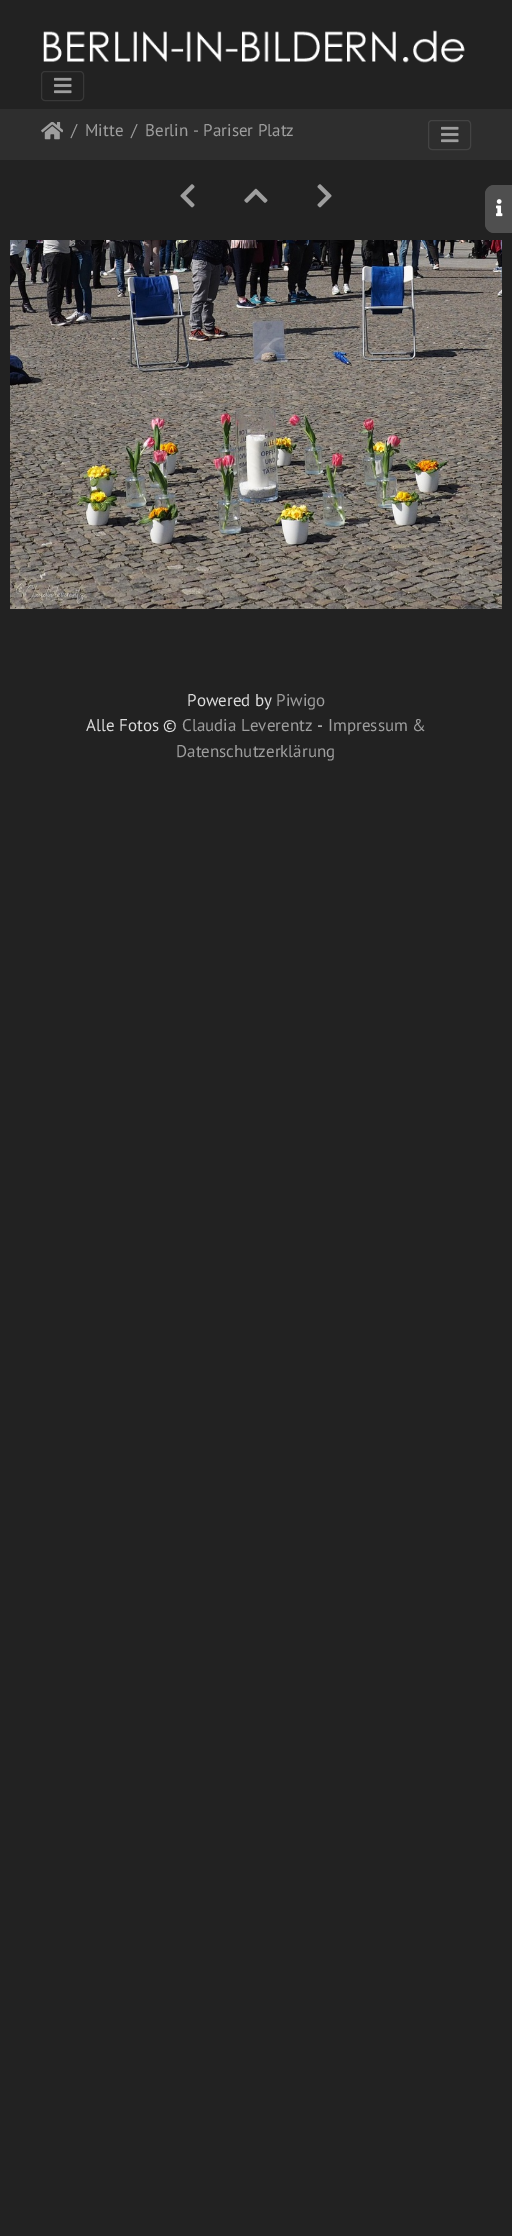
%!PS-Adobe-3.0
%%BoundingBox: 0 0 512 2236
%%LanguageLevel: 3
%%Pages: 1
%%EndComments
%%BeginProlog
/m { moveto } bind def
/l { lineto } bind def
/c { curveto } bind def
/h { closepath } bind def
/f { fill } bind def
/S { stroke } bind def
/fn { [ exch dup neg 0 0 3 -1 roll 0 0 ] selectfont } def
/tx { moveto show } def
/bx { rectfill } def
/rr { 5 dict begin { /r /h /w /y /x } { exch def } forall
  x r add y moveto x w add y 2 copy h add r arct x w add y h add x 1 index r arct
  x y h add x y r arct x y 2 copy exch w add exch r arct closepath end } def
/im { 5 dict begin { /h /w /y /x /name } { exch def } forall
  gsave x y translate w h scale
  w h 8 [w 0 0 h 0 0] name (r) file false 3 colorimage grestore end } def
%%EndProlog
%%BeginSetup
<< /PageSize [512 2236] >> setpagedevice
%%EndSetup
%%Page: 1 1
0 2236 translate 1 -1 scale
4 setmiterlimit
0.133 setgray
0 0 512 2236 bx
(image0.raw) 43 30 422 33 im
0.22 setgray
41.5 71.5 42 29 3.5 rr S
(image1.raw) 54 77 18 17 im
0.18 setgray
0 109 512 51 bx
(image2.raw) 41 122 22 18 im
/PTSans-Regular 17 fn
0.62 setgray
(/) 71 136 tx
(Mitte) 85 136 tx
(/) 131 136 tx
(Berlin - Pariser Platz) 145 136 tx
0.263 setgray
428.5 120.5 42 29 3.5 rr S
(image3.raw) 441 126 18 17 im
(image4.raw) 180 184 15 24 im
(image5.raw) 244 188 24 15 im
(image6.raw) 317 184 15 24 im
0.31 setgray
495 185 m 512 185 l 512 233 l 495 233 l 489.5 233 485 228.5 485 223 c 485 195 l 485 189.5 489.5 185 495 185 c h f
495 185 m 512 185 l 512 233 l 495 233 l 489 233 485 229 485 223 c 485 195 l 485 189 489 185 495 185 c h 495 186 m 512 186 l 512 232 l 495 232 l 490 232 486 228 486 223 c 486 195 l 486 190 490 186 495 186 c h eofill
(image7.raw) 496 199 7 18 im
(image8.raw) 10 240 492 369 im
0.859 setgray
(Powered by) 187 706 tx
0.62 setgray
(Piwigo) 276 706 tx
0.859 setgray
(Alle Fotos ©) 86 731 tx
0.62 setgray
(Claudia Leverentz) 182 731 tx
0.859 setgray
(-) 317 731 tx
0.62 setgray
(Impressum &) 328 731 tx
(Datenschutzerklärung) 176 757 tx
showpage
%%EOF
